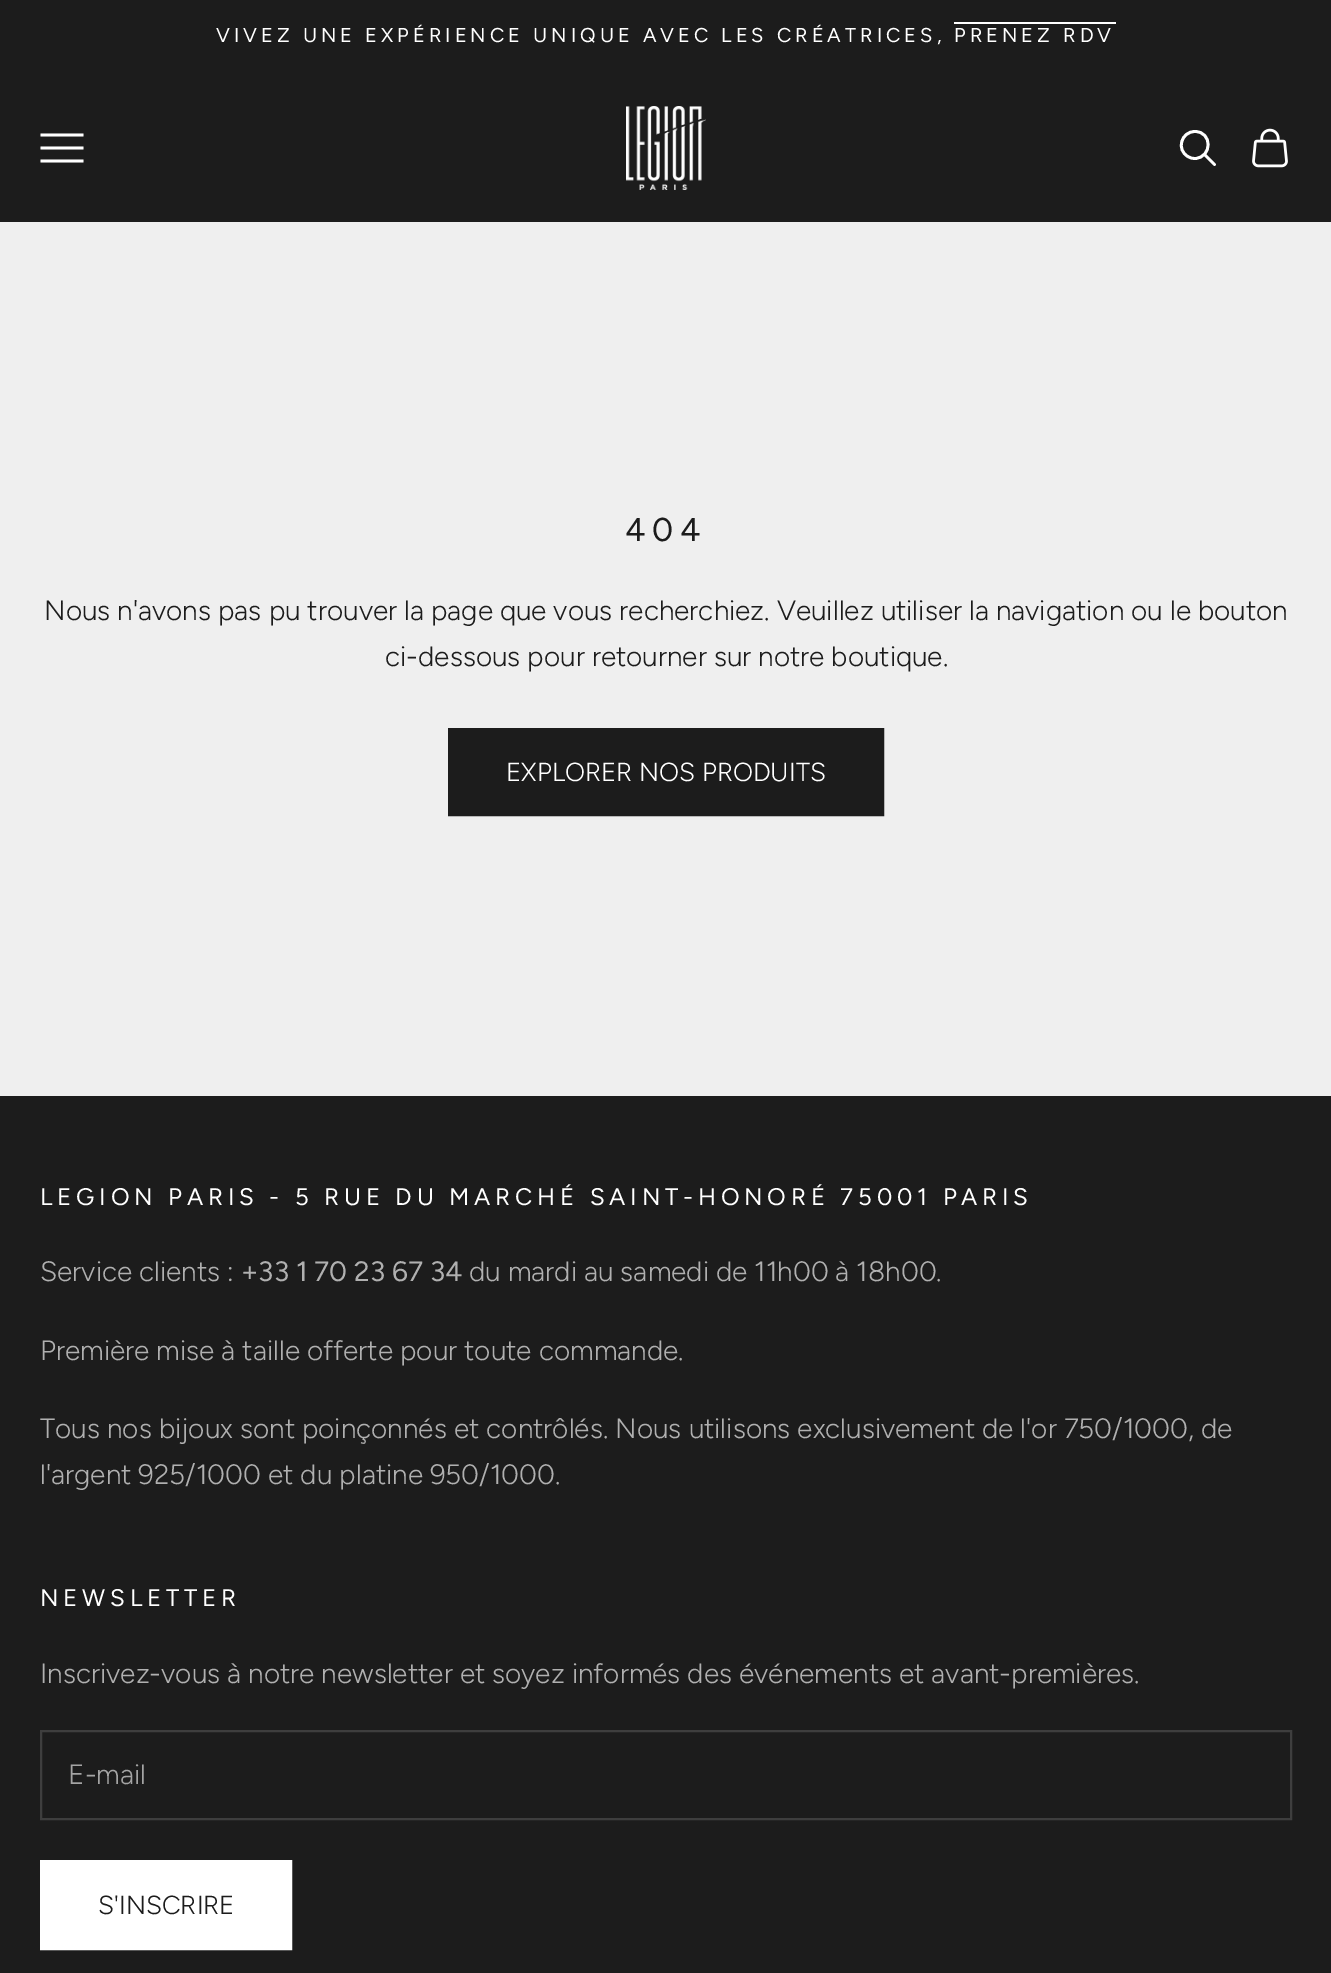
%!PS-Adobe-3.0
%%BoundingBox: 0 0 1331 1973
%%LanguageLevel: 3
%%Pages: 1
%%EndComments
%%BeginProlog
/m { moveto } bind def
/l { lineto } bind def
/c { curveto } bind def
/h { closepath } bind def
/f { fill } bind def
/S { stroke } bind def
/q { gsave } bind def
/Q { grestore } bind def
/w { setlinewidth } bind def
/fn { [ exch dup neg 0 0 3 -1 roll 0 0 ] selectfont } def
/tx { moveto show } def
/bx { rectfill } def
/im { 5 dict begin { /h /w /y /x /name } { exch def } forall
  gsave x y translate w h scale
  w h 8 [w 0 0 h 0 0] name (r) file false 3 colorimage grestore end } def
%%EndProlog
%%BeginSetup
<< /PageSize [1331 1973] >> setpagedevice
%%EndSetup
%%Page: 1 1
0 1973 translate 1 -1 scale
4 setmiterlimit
0.11 setgray
0 0 1331 1973 bx
1 setgray
954 22 162 2 bx
/Figtree-Regular 20 fn
216 42 m 4 0 (VIVEZ UNE EXPÉRIENCE UNIQUE AVEC LES CRÉATRICES, PRENEZ RDV) ashow
2.8 w
2 setlinecap
42 161 m 82 161 l 42 148 m 82 148 l 42 135 m 82 135 l S
(image0.raw) 626 106 80 84 im
0 setlinecap
1195 131.5 m 1181 131.5 1176 150 1188 156.5 c 1190 158 1192.5 158.5 1195 158.5 c 1212.5 157.5 1212.5 131.5 1195 131.5 c h S
1 setlinecap
1205 155 m 1214.5 164.5 l S
(image1.raw) 1252 128 36 40 im
0.937 setgray
0 222 1331 874 bx
/Figtree-Regular 33 fn
0.11 setgray
625 541 m 6.5 0 (404) ashow
/Figtree-Light 28 fn
(Nous n'avons pas pu trouver la page que vous recherchiez. Veuillez utiliser la navigation ou le bouton) 44 620 tx
(ci-dessous pour retourner sur notre boutique.) 385 666 tx
449 729 m 883 729 l 883 815 l 449 815 l h q f Q
2 w
0 setlinecap
S
/Figtree-Light 26 fn
1 setgray
(EXPLORER NOS PRODUITS) 506 781 tx
/Figtree-Regular 24 fn
40 1205 m 4.8 0 (LEGION PARIS - 5 RUE DU MARCHÉ SAINT-HONORÉ 75001 PARIS) ashow
/Figtree-Light 28 fn
0.69 setgray
(Service clients :) 40 1281 tx
/Figtree-Regular 28 fn
(+33 1 70 23 67 34) 241 1281 tx
/Figtree-Light 28 fn
(du mardi au samedi de 11h00 à 18h00.) 469 1281 tx
(Première mise à taille offerte pour toute commande.) 40 1360 tx
(Tous nos bijoux sont poinçonnés et contrôlés. Nous utilisons exclusivement de l'or 750/1000, de) 40 1438 tx
(l'argent 925/1000 et du platine 950/1000.) 40 1484 tx
/Figtree-Regular 24 fn
1 setgray
40 1606 m 4.8 0 (NEWSLETTER) ashow
/Figtree-Light 28 fn
0.69 setgray
(Inscrivez-vous à notre newsletter et soyez informés des événements et avant-premières.) 40 1683 tx
0.243 setgray
41 1731 1250 88 rectstroke
0.643 setgray
(E-mail) 68 1784 tx
1 setgray
41 1861 m 291 1861 l 291 1949 l 41 1949 l h q f Q
S
/Figtree-Light 26 fn
0.11 setgray
(S'INSCRIRE) 98 1914 tx
showpage
%%EOF
